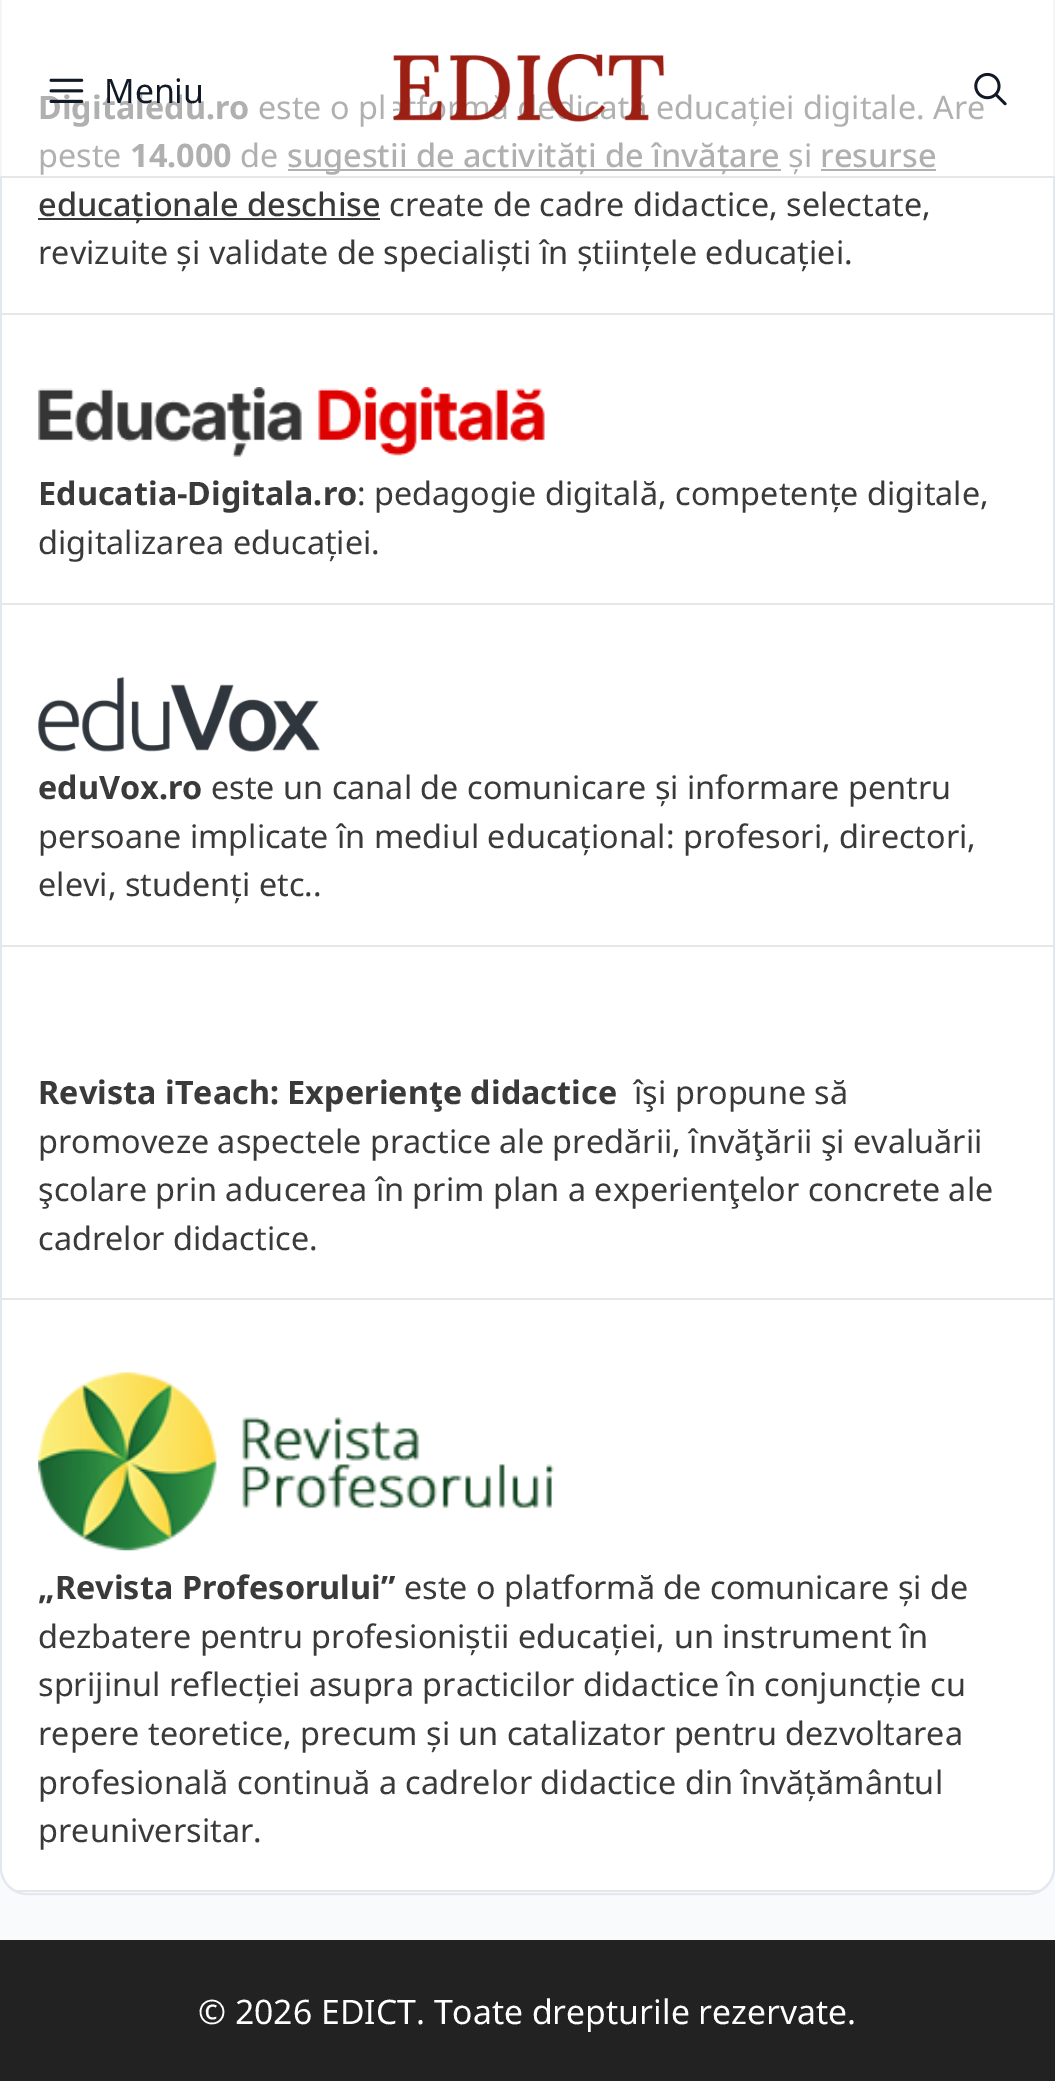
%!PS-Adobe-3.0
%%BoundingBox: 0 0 1055 2081
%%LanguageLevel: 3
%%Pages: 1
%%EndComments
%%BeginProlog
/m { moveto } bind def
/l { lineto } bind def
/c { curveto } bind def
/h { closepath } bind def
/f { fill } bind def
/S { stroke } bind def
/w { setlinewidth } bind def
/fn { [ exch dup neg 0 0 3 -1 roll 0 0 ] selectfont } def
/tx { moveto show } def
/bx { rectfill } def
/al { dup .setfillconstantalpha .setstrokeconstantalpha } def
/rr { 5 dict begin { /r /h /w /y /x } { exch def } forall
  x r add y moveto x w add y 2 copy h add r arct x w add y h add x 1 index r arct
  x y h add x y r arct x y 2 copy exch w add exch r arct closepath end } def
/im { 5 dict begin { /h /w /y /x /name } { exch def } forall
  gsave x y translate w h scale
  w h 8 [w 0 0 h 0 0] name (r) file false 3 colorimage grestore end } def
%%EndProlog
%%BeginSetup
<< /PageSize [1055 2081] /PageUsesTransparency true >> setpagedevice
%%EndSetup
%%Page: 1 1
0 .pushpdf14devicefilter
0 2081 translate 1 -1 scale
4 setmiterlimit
0.976 0.98 0.984 setrgbcolor
0 0 1055 2081 bx
0.886 0.91 0.941 setrgbcolor
2 w
1 -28 1053 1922 26 rr S
1 setgray
2 0 1051 313 bx
/NotoSans-Bold 32.4 fn
0.227 setgray
(Digitaledu.ro) 38 119 tx
/NotoSans-Regular 32.4 fn
(este o pl) 258 119 tx
(a) 599 119 tx
(educației digitale. Are) 656 119 tx
(peste) 38 167 tx
/NotoSans-Bold 32.4 fn
(14.000) 130 167 tx
/NotoSans-Regular 32.4 fn
(de) 240 167 tx
288 169 493 2 bx
/NotoSans-Medium 32.4 fn
(sugestii de activități de învățare) 287 167 tx
/NotoSans-Regular 32.4 fn
(și) 788 167 tx
/NotoSans-Medium 32.4 fn
(resurse) 820 167 tx
821 169 115 2 bx
0.6 al
1 setgray
0 0 1055 176 bx
1 al
0.898 0.906 0.922 setrgbcolor
0 176 1055 2 bx
(image0.raw) 49 78 35 25 im
/NotoSans-Regular 33.75 fn
0.067 0.094 0.149 setrgbcolor
(Meniu) 104 103 tx
(image1.raw) 974 72 33 34 im
(image2.raw) 393 54 271 68 im
0.898 0.906 0.922 setrgbcolor
2 313 1051 2 bx
0.227 setgray
38 218 342 2 bx
/NotoSans-Medium 32.4 fn
(educaționale deschise) 38 216 tx
/NotoSans-Regular 32.4 fn
(create de cadre didactice, selectate,) 389 216 tx
(revizuite și validate de specialiști în științele educației.) 38 264 tx
1 setgray
2 315 1051 288 bx
0.898 0.906 0.922 setrgbcolor
2 603 1051 2 bx
(image3.raw) 38 387 507 70 im
/NotoSans-Bold 32.4 fn
0.227 setgray
(Educatia-Digitala.ro) 38 505 tx
/NotoSans-Regular 32.4 fn
(: pedagogie digitală, competențe digitale,) 357 505 tx
(digitalizarea educației.) 38 554 tx
1 setgray
2 605 1051 340 bx
0.898 0.906 0.922 setrgbcolor
2 945 1051 2 bx
(image4.raw) 38 677 282 75 im
/NotoSans-Bold 32.4 fn
0.227 setgray
(eduVox.ro) 38 799 tx
/NotoSans-Regular 32.4 fn
(este un canal de comunicare și informare pentru) 211 799 tx
(persoane implicate în mediul educațional: profesori, directori,) 38 848 tx
(elevi, studenți etc..) 38 896 tx
1 setgray
2 947 1051 354 bx
0.898 0.906 0.922 setrgbcolor
2 1298 1051 2 bx
/NotoSans-Bold 32.4 fn
0.227 setgray
(Revista iTeach: Experienţe didactice) 38 1104 tx
/NotoSans-Regular 32.4 fn
(îşi propune să) 634 1104 tx
(promoveze aspectele practice ale predării, învăţării şi evaluării) 38 1153 tx
(şcolare prin aducerea în prim plan a experienţelor concrete ale) 38 1201 tx
(cadrelor didactice.) 38 1250 tx
1 setgray
2 1301 m 1053 1301 l 1053 1865 l 1053 1880 1041 1892 1026 1892 c 29 1892 l 14 1892 2 1880 2 1865 c h f
0.898 0.906 0.922 setrgbcolor
16 1890 1024 2 bx
(image5.raw) 38 1372 516 179 im
/NotoSans-Bold 32.4 fn
0.227 setgray
(„Revista Profesorului”) 38 1599 tx
/NotoSans-Regular 32.4 fn
(este o platformă de comunicare și de) 404 1599 tx
(dezbatere pentru profesioniștii educației, un instrument în) 38 1648 tx
(sprijinul reflecției asupra practicilor didactice în conjuncție cu) 38 1696 tx
(repere teoretice, precum și un catalizator pentru dezvoltarea) 38 1745 tx
(profesională continuă a cadrelor didactice din învățământul) 38 1794 tx
(preuniversitar.) 38 1842 tx
0.133 setgray
0 1940 1055 141 bx
/NotoSans-Regular 33.75 fn
1 setgray
(© 2026 EDICT. Toate drepturile rezervate.) 198 2024 tx
.poppdf14devicefilter showpage
%%EOF
